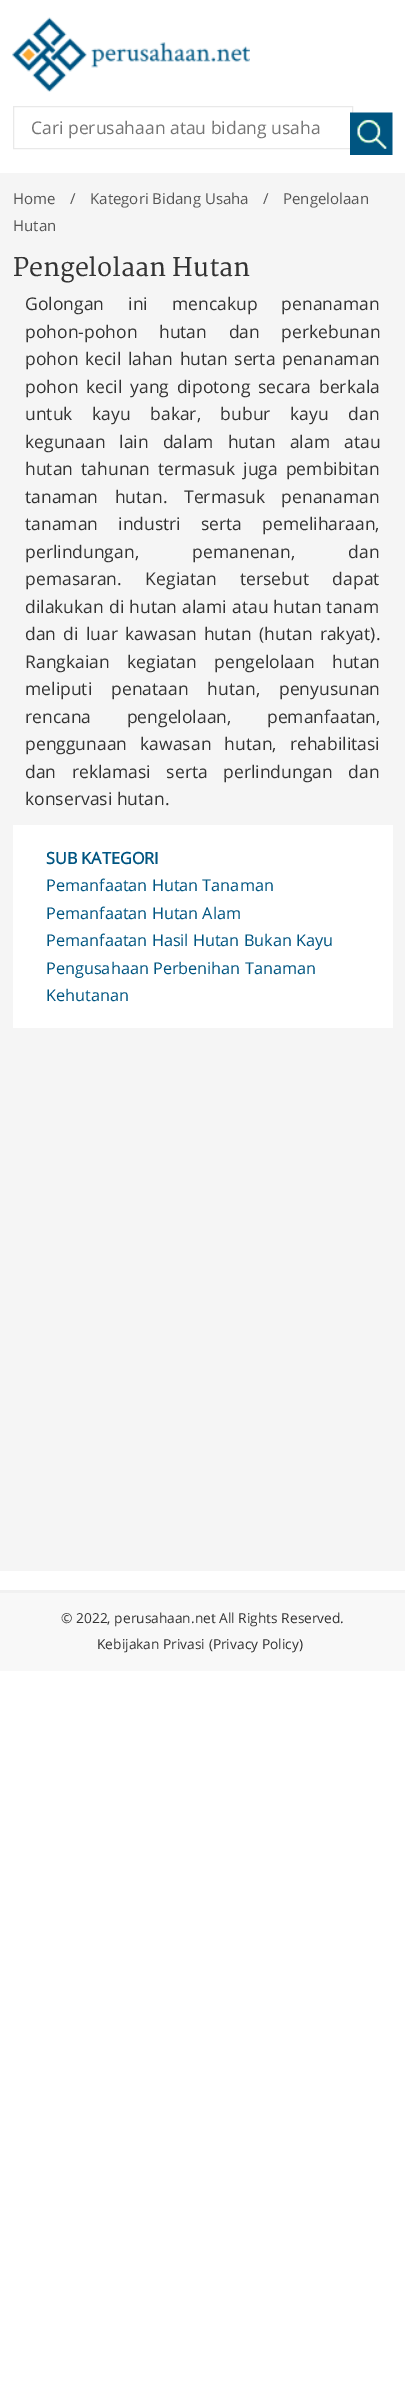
%!PS-Adobe-3.0
%%BoundingBox: 0 0 405 2383
%%LanguageLevel: 3
%%Pages: 1
%%EndComments
%%BeginProlog
/m { moveto } bind def
/fn { [ exch dup neg 0 0 3 -1 roll 0 0 ] selectfont } def
/tx { moveto show } def
/bx { rectfill } def
/im { 5 dict begin { /h /w /y /x /name } { exch def } forall
  gsave x y translate w h scale
  w h 8 [w 0 0 h 0 0] name (r) file false 3 colorimage grestore end } def
%%EndProlog
%%BeginSetup
<< /PageSize [405 2383] >> setpagedevice
%%EndSetup
%%Page: 1 1
0 2383 translate 1 -1 scale
4 setmiterlimit
1 setgray
0 0 405 2383 bx
(image0.raw) 12 17 238 75 im
0.914 setgray
13.5 106.5 339 42 rectstroke
/OpenSans-Regular 17.5 fn
0.459 setgray
(Cari perusahaan atau bidang usaha) 31 134 tx
(image1.raw) 350 112 43 43 im
0.961 setgray
0 173 405 1398 bx
/OpenSans-Regular 15 fn
0.333 setgray
(Home) 13 204 tx
(/) 70 204 tx
(Kategori Bidang Usaha) 90 204 tx
(/) 263 204 tx
(Pengelolaan) 283 204 tx
(Hutan) 13 231 tx
/Merriweather-Regular 25 fn
0.2 setgray
(Pengelolaan Hutan) 13 276 tx
/OpenSans-Regular 17.5 fn
25 310 m 19.5 0 32 (Golongan ini mencakup penanaman) widthshow
25 338 m 17 0 32 (pohon-pohon hutan dan perkebunan) widthshow
25 365 m 2 0 32 (pohon kecil lahan hutan serta penanaman) widthshow
25 393 m 3.25 0 32 (pohon kecil yang dipotong secara berkala) widthshow
25 420 m 15 0 32 (untuk kayu bakar, bubur kayu dan) widthshow
25 448 m 9.5 0 32 (kegunaan lain dalam hutan alam atau) widthshow
25 475 m 3.5 0 32 (hutan tahunan termasuk juga pembibitan) widthshow
25 503 m 12 0 32 (tanaman hutan. Termasuk penanaman) widthshow
25 530 m 15.5 0 32 (tanaman industri serta pemeliharaan,) widthshow
25 558 m 49 0 32 (perlindungan, pemanenan, dan) widthshow
25 585 m 19 0 32 (pemasaran. Kegiatan tersebut dapat) widthshow
25 613 m 0.5 0 32 (dilakukan di hutan alami atau hutan tanam) widthshow
25 640 m 2.75 0 32 (dan di luar kawasan hutan \(hutan rakyat\).) widthshow
25 668 m 13 0 32 (Rangkaian kegiatan pengelolaan hutan) widthshow
25 695 m 14.5 0 32 (meliputi penataan hutan, penyusunan) widthshow
25 723 m 31 0 32 (rencana pengelolaan, pemanfaatan,) widthshow
25 750 m 8.5 0 32 (penggunaan kawasan hutan, rehabilitasi) widthshow
25 778 m 11 0 32 (dan reklamasi serta perlindungan dan) widthshow
(konservasi hutan.) 25 805 tx
1 setgray
13 825 380 203 bx
/OpenSans-Bold 16.25 fn
0 0.333 0.506 setrgbcolor
(SUB KATEGORI) 46 864 tx
/OpenSans-Regular 16.25 fn
(Pemanfaatan Hutan Tanaman) 46 891 tx
(Pemanfaatan Hutan Alam) 46 919 tx
(Pemanfaatan Hasil Hutan Bukan Kayu) 46 946 tx
(Pengusahaan Perbenihan Tanaman) 46 974 tx
(Kehutanan) 46 1001 tx
0.973 setgray
0 1593 405 78 bx
0.945 setgray
0 1590 405 3 bx
/OpenSans-Regular 13.75 fn
0.2 setgray
(© 2022, perusahaan.net All Rights Reserved.) 61 1623 tx
(Kebijakan Privasi \(Privacy Policy\)) 97 1649 tx
showpage
%%EOF
